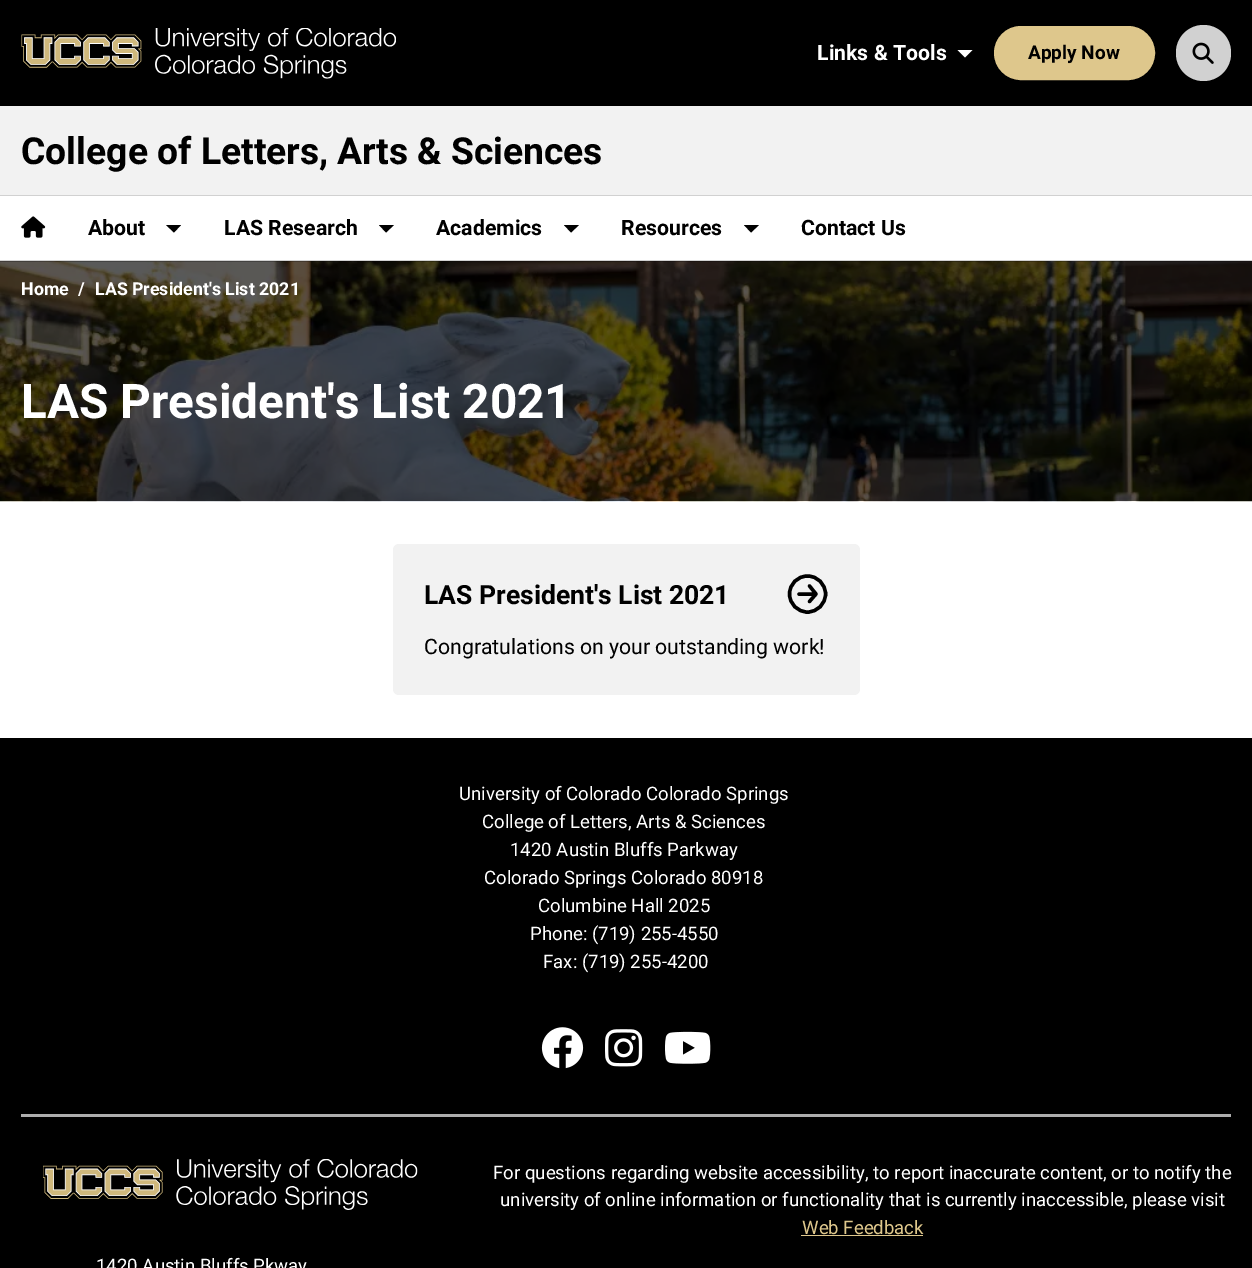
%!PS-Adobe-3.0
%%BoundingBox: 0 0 1252 1268
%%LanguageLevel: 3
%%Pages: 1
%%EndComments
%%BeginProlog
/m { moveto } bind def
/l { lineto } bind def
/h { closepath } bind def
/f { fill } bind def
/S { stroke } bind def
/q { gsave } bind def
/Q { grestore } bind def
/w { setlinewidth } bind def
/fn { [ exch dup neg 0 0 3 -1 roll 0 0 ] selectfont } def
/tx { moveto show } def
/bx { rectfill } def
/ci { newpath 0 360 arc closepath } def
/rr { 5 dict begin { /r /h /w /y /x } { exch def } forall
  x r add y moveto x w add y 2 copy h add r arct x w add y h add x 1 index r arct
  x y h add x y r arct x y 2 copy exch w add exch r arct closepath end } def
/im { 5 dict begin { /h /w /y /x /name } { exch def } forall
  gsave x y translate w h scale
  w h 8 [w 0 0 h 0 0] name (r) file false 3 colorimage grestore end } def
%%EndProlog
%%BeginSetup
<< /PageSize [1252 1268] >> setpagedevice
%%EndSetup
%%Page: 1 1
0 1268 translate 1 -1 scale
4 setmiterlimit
1 setgray
0 0 1252 1268 bx
0 setgray
0 0 1252 106 bx
(image0.raw) 21 28 375 51 im
/Roboto-Bold 21.25 fn
1 setgray
(Links & Tools) 817 60 tx
957.5 50 m 972.5 50 l 965 57.5 l h f
0.871 0.78 0.549 setrgbcolor
995.5 27.5 158 51 25.5 rr q f Q
3 w
S
/Roboto-Bold 19 fn
0 setgray
(Apply Now) 1028 59 tx
0.82 setgray
1176 25 55 56 27.5 rr f
(image1.raw) 1192 42 22 22 im
0.949 setgray
0 106 1252 89 bx
0.82 setgray
0 195 1252 1 bx
/Roboto-Bold 37.25 fn
0 setgray
(College of Letters, Arts & Sciences) 21 164 tx
0.82 setgray
0 260 1252 1 bx
(image2.raw) 21 216 25 22 im
/Roboto-Bold 21.25 fn
0 setgray
(About) 88 235 tx
166 225 m 181 225 l 174 232.5 l h f
(LAS Research) 224 235 tx
379 225 m 394 225 l 386 232.5 l h f
(Academics) 436 235 tx
564 225 m 579 225 l 571 232.5 l h f
(Resources) 621 235 tx
744 225 m 759 225 l 751 232.5 l h f
(Contact Us) 801 235 tx
(image3.raw) 0 261 1252 241 im
/Roboto-Bold 17.75 fn
1 setgray
(Home) 21 295 tx
(/) 78 295 tx
(LAS President's List 2021) 95 295 tx
/Roboto-Bold 47.75 fn
(LAS President's List 2021) 21 418 tx
0.949 setgray
393 544 467 151 6 rr f
/Roboto-Bold 26.5 fn
0 setgray
(LAS President's List 2021) 424 604 tx
3.4 w
807.5 594 18 ci S
1 setlinecap
799 594 m 814 594 l 816 594 m 809.5 601.5 l 816 594 m 809.5 586 l S
/Roboto-Regular 21.25 fn
(Congratulations on your outstanding work!) 424 654 tx
0 738 1252 530 bx
/Roboto-Regular 18.6 fn
1 setgray
(University of Colorado Colorado Springs) 459 800 tx
(College of Letters, Arts & Sciences) 482 828 tx
(1420 Austin Bluffs Parkway) 510 856 tx
(Colorado Springs Colorado 80918) 484 884 tx
(Columbine Hall 2025) 538 912 tx
(Phone: \(719\) 255-4550) 530 940 tx
(Fax: \(719\) 255-4200) 543 968 tx
(image4.raw) 541 1027 43 42 im
(image5.raw) 605 1029 38 38 im
(image6.raw) 665 1031 46 33 im
0.678 setgray
21 1114 1210 3 bx
1 setgray
(For questions regarding website accessibility, to report inaccurate content, or to notify the) 493 1179 tx
(university of online information or functionality that is currently inaccessible, please visit) 500 1206 tx
0.871 0.78 0.549 setrgbcolor
(Web Feedback) 802 1234 tx
801 1235 122 1 bx
(image7.raw) 43 1159 375 51 im
1 setgray
(1420 Austin Bluffs Pkway) 96 1272 tx
showpage
%%EOF
